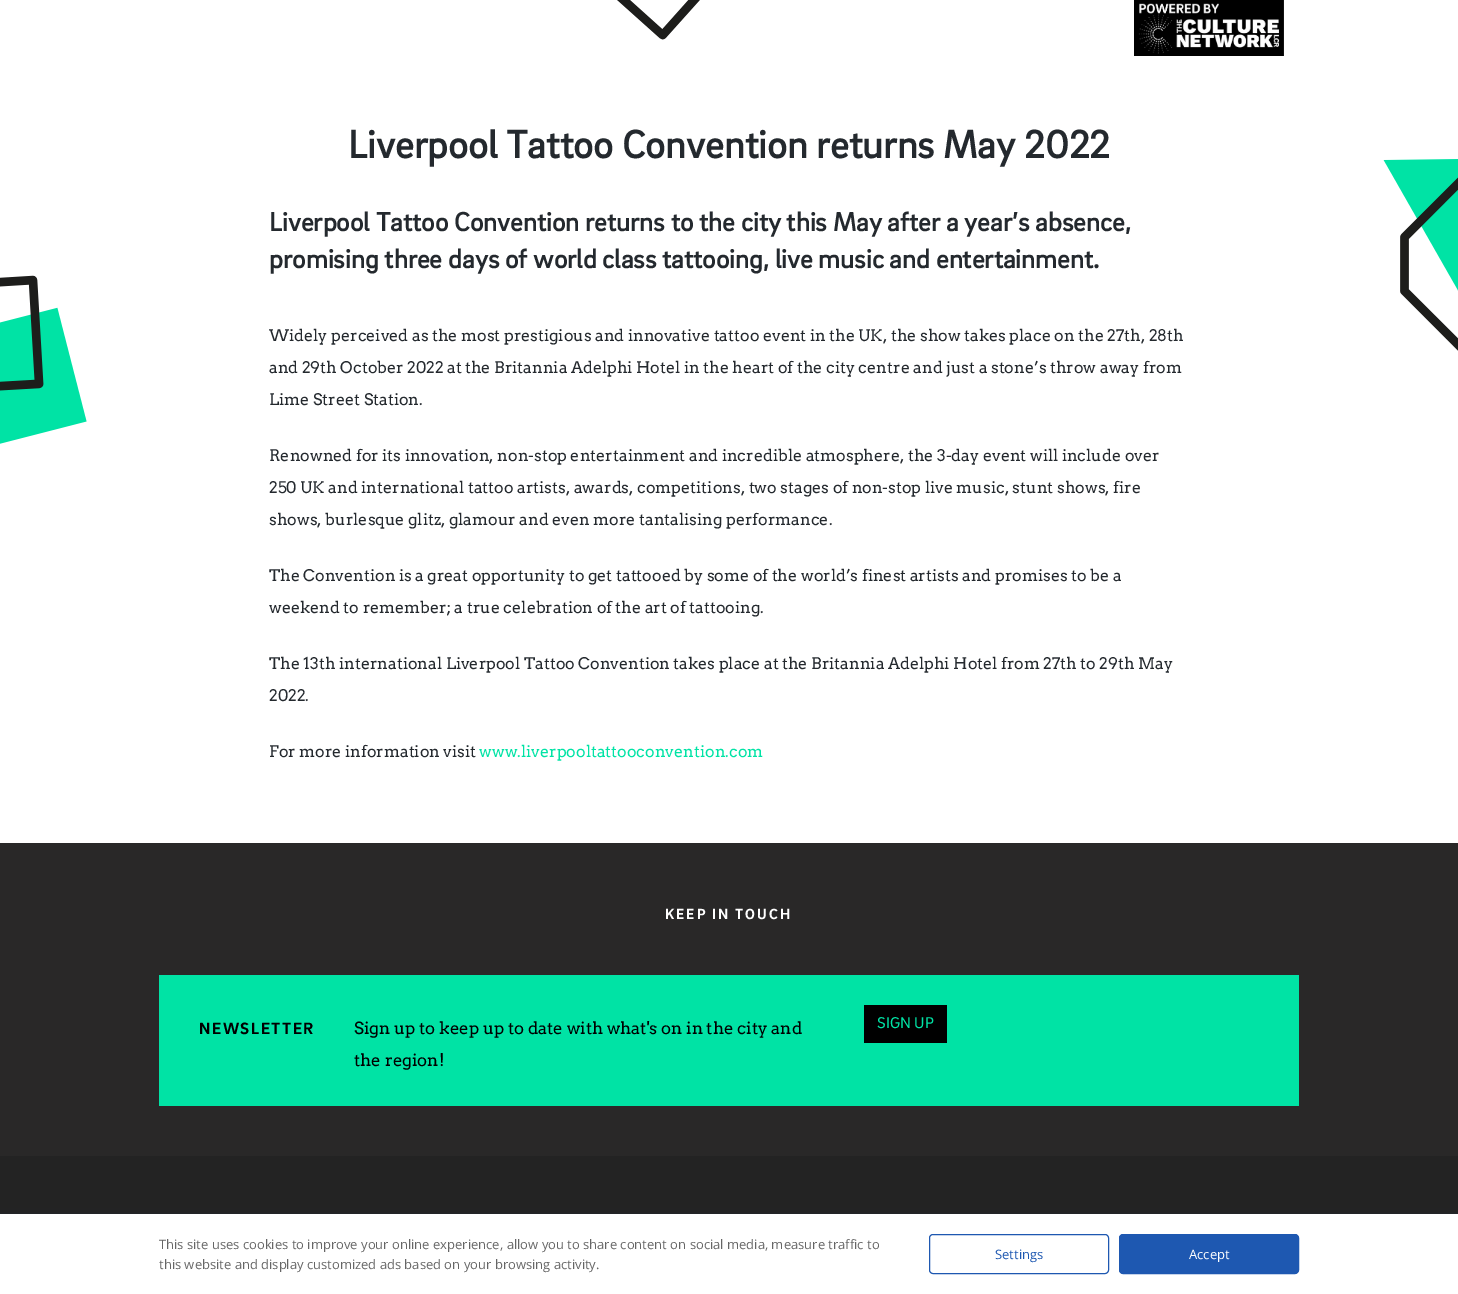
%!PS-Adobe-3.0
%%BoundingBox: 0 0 1458 1294
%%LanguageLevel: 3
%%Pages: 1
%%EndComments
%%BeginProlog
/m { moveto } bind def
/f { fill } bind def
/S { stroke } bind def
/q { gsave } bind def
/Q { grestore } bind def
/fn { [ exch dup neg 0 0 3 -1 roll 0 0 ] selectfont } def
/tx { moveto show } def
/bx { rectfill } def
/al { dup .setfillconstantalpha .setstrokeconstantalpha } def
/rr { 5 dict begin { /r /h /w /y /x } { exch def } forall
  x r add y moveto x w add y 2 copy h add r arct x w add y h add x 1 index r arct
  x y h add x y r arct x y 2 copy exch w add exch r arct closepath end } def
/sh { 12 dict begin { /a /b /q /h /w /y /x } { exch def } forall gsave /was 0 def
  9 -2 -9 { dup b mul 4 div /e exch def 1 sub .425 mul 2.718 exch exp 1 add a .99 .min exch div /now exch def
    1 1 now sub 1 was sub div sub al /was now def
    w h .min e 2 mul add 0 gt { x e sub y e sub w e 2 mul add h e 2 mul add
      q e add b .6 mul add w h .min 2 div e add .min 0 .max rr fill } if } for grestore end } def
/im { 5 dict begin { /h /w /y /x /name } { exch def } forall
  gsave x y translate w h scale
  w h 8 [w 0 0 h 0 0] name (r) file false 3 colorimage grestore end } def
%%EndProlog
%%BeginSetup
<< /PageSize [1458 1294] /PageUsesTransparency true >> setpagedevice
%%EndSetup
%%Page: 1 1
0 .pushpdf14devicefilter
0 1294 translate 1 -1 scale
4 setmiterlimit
1 setgray
0 0 1458 1294 bx
(image0.raw) 0 0 1458 444 im
(image1.raw) 1134 0 150 56 im
/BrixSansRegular-Bold 40 fn
0.141 0.161 0.18 setrgbcolor
(Liverpool Tattoo Convention returns May 2022) 348 158 tx
/BrixSansRegular-Bold 27 fn
(Liverpool Tattoo Convention returns to the city this May after a year’s absence,) 269 231 tx
(promising three days of world class tattooing, live music and entertainment.) 269 268 tx
/Arvo-Regular 16 fn
(Widely perceived as the most prestigious and innovative tattoo event in the UK, the show takes place on the 27th, 28th) 269 341 tx
(and 29th October 2022 at the Britannia Adelphi Hotel in the heart of the city centre and just a stone’s throw away from) 269 373 tx
(Lime Street Station.) 269 405 tx
(Renowned for its innovation, non-stop entertainment and incredible atmosphere, the 3-day event will include over) 269 461 tx
(250 UK and international tattoo artists, awards, competitions, two stages of non-stop live music, stunt shows, fire) 269 493 tx
(shows, burlesque glitz, glamour and even more tantalising performance.) 269 525 tx
(The Convention is a great opportunity to get tattooed by some of the world’s finest artists and promises to be a) 269 581 tx
(weekend to remember; a true celebration of the art of tattooing.) 269 613 tx
(The 13th international Liverpool Tattoo Convention takes place at the Britannia Adelphi Hotel from 27th to 29th May) 269 669 tx
(2022.) 269 701 tx
(For more information visit) 269 757 tx
0 0.89 0.647 setrgbcolor
(www.liverpooltattooconvention.com) 479 757 tx
0.161 0.157 0.157 setrgbcolor
0 843 1458 313 bx
/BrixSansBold-Regular 15 fn
1 setgray
665 919 m 2 0 (KEEP IN TOUCH) ashow
0 0.89 0.647 setrgbcolor
159 975 1140 131 bx
/BrixSansBold-Regular 16.8 fn
0 setgray
199 1034 m 1.5 0 (NEWSLETTER) ashow
/Arvo-Regular 16.8 fn
(Sign up to keep up to date with what's on in the city and) 354 1034 tx
(the region!) 354 1066 tx
864 1005 83 38 bx
/BrixSansRegular-Regular 16 fn
0 0.89 0.647 setrgbcolor
(SIGN UP) 877 1028 tx
0.137 setgray
0 1156 1458 57 bx
0.141 0.184 0.259 setrgbcolor
-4 1220 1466 68 0 10 0.31 sh
0.137 0.145 0.157 setrgbcolor
-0.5 1213.5 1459 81 rectstroke
1 setgray
0 1214 1458 80 bx
/OpenSans-Regular 13 fn
0.4 setgray
(This site uses cookies to improve your online experience, allow you to share content on social media, measure traffic to) 159 1249 tx
(this website and display customized ads based on your browsing activity.) 159 1269 tx
0.118 0.345 0.694 setrgbcolor
929.5 1234.5 179 39 3.5 rr S
(Settings) 995 1259 tx
1119.5 1234.5 179 39 3.5 rr q f Q
S
1 setgray
(Accept) 1189 1259 tx
.poppdf14devicefilter showpage
%%EOF
